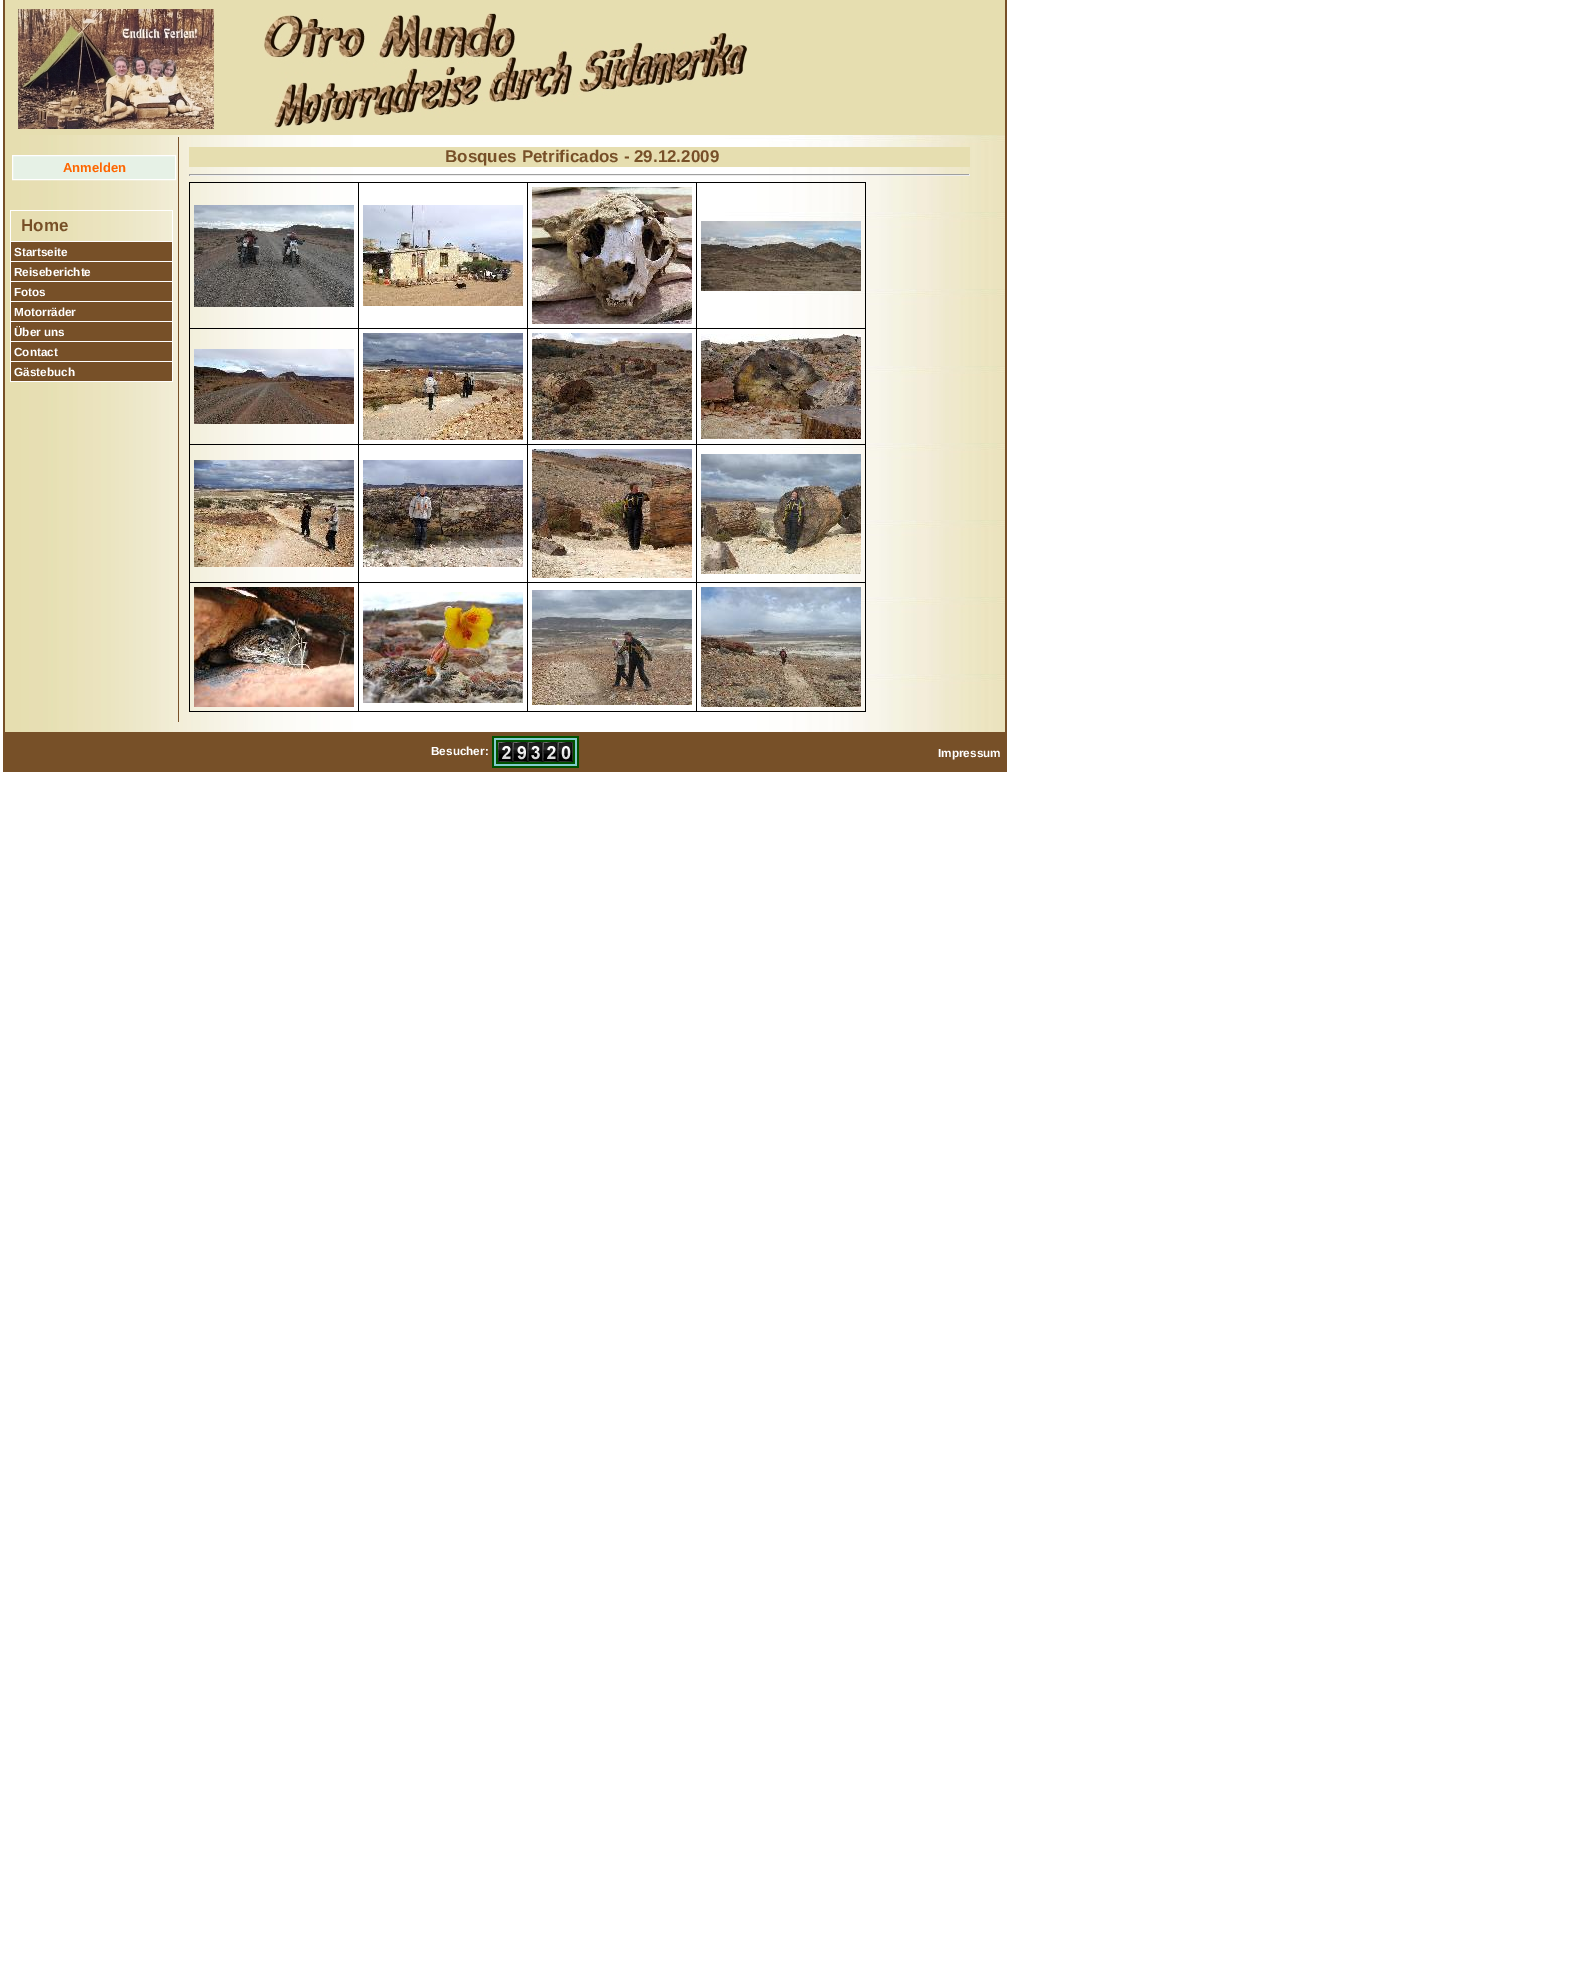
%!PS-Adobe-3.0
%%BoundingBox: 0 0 1577 1984
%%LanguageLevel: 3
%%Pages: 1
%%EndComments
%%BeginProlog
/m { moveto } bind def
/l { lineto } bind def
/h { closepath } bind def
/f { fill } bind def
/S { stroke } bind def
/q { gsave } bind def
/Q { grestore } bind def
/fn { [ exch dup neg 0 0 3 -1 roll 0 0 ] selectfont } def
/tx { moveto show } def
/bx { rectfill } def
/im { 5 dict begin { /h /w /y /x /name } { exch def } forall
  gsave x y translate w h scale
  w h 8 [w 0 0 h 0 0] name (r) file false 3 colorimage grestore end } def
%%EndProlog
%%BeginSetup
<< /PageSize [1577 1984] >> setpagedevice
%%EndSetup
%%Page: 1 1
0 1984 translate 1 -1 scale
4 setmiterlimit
1 setgray
0 0 1577 1984 bx
0.902 0.871 0.69 setrgbcolor
5 0 1000 135 bx
0.467 0.314 0.157 setrgbcolor
1005 0 2 732 bx
3 0 2 732 bx
(image0.raw) 18 9 196 120 im
(image1.raw) 264 13 484 115 im
(image2.raw) 5 135 1000 597 im
178 137 1 585 bx
0.902 0.871 0.69 setrgbcolor
189 147 781 20 bx
/LiberationSans-Bold 17 fn
0.467 0.314 0.157 setrgbcolor
(Bosques Petrificados - 29.12.2009) 445 162 tx
0.624 setgray
189 174 781 1 bx
0.933 setgray
969 174 1 2 bx
189 175 781 1 bx
0.624 setgray
189 174 1 2 bx
0 setgray
696 182 170 1 bx
696 328 170 1 bx
696 444 170 1 bx
696 582 170 1 bx
865 582 1 130 bx
696 711 170 1 bx
696 582 1 130 bx
527 582 170 1 bx
696 444 1 139 bx
527 444 170 1 bx
696 328 1 117 bx
527 328 170 1 bx
696 182 1 147 bx
527 182 170 1 bx
527 711 170 1 bx
527 582 1 130 bx
358 582 170 1 bx
527 444 1 139 bx
358 444 170 1 bx
527 328 1 117 bx
358 328 170 1 bx
527 182 1 147 bx
358 182 170 1 bx
358 711 170 1 bx
358 582 1 130 bx
189 582 170 1 bx
358 444 1 139 bx
189 444 170 1 bx
358 328 1 117 bx
189 328 170 1 bx
358 182 1 147 bx
189 182 170 1 bx
189 711 170 1 bx
189 582 1 130 bx
189 444 1 139 bx
189 328 1 117 bx
189 182 1 147 bx
(image3.raw) 194 205 160 102 im
(image4.raw) 363 205 160 101 im
(image5.raw) 532 187 160 137 im
865 444 1 139 bx
865 328 1 117 bx
865 182 1 147 bx
(image6.raw) 701 221 160 70 im
(image7.raw) 194 349 160 75 im
(image8.raw) 363 333 160 107 im
(image9.raw) 532 333 160 107 im
(image10.raw) 701 334 160 105 im
(image11.raw) 194 460 160 107 im
(image12.raw) 363 460 160 107 im
(image13.raw) 532 449 160 129 im
(image14.raw) 701 454 160 120 im
(image15.raw) 194 587 160 120 im
(image16.raw) 363 592 160 111 im
(image17.raw) 532 590 160 115 im
(image18.raw) 701 587 160 120 im
0.902 0.945 0.902 setrgbcolor
12.5 155.5 m 175.5 155.5 l 175.5 179.5 l 12.5 179.5 l h q f Q
1 setgray
S
/LiberationSans-Bold 13 fn
1 0.4 0 setrgbcolor
(Anmelden) 63 172 tx
1 setgray
10 210 163 1 bx
10 241 163 1 bx
10 261 163 1 bx
10 281 163 1 bx
10 301 163 1 bx
10 321 163 1 bx
10 341 163 1 bx
10 361 163 1 bx
172 361 1 21 bx
172 341 1 21 bx
172 321 1 21 bx
172 301 1 21 bx
172 281 1 21 bx
172 261 1 21 bx
172 241 1 21 bx
172 210 1 32 bx
10 381 163 1 bx
10 361 1 21 bx
10 341 1 21 bx
10 321 1 21 bx
10 301 1 21 bx
10 281 1 21 bx
10 261 1 21 bx
10 241 1 21 bx
10 210 1 32 bx
/LiberationSans-Bold 17 fn
0.467 0.314 0.157 setrgbcolor
(Home) 21 231 tx
11 242 161 19 bx
/LiberationSans-Bold 11.75 fn
1 setgray
(Startseite) 14 256 tx
0.467 0.314 0.157 setrgbcolor
11 262 161 19 bx
1 setgray
(Reiseberichte) 14 276 tx
0.467 0.314 0.157 setrgbcolor
11 282 161 19 bx
1 setgray
(Fotos) 14 296 tx
0.467 0.314 0.157 setrgbcolor
11 302 161 19 bx
1 setgray
(Motorräder) 14 316 tx
0.467 0.314 0.157 setrgbcolor
11 322 161 19 bx
1 setgray
(Über uns) 14 336 tx
0.467 0.314 0.157 setrgbcolor
11 342 161 19 bx
1 setgray
(Contact) 14 356 tx
0.467 0.314 0.157 setrgbcolor
11 362 161 19 bx
1 setgray
(Gästebuch) 14 376 tx
0.467 0.314 0.157 setrgbcolor
3 732 1004 40 bx
1 setgray
(Besucher:) 431 755 tx
(image19.raw) 492 736 87 32 im
(Impressum) 938 757 tx
showpage
%%EOF
